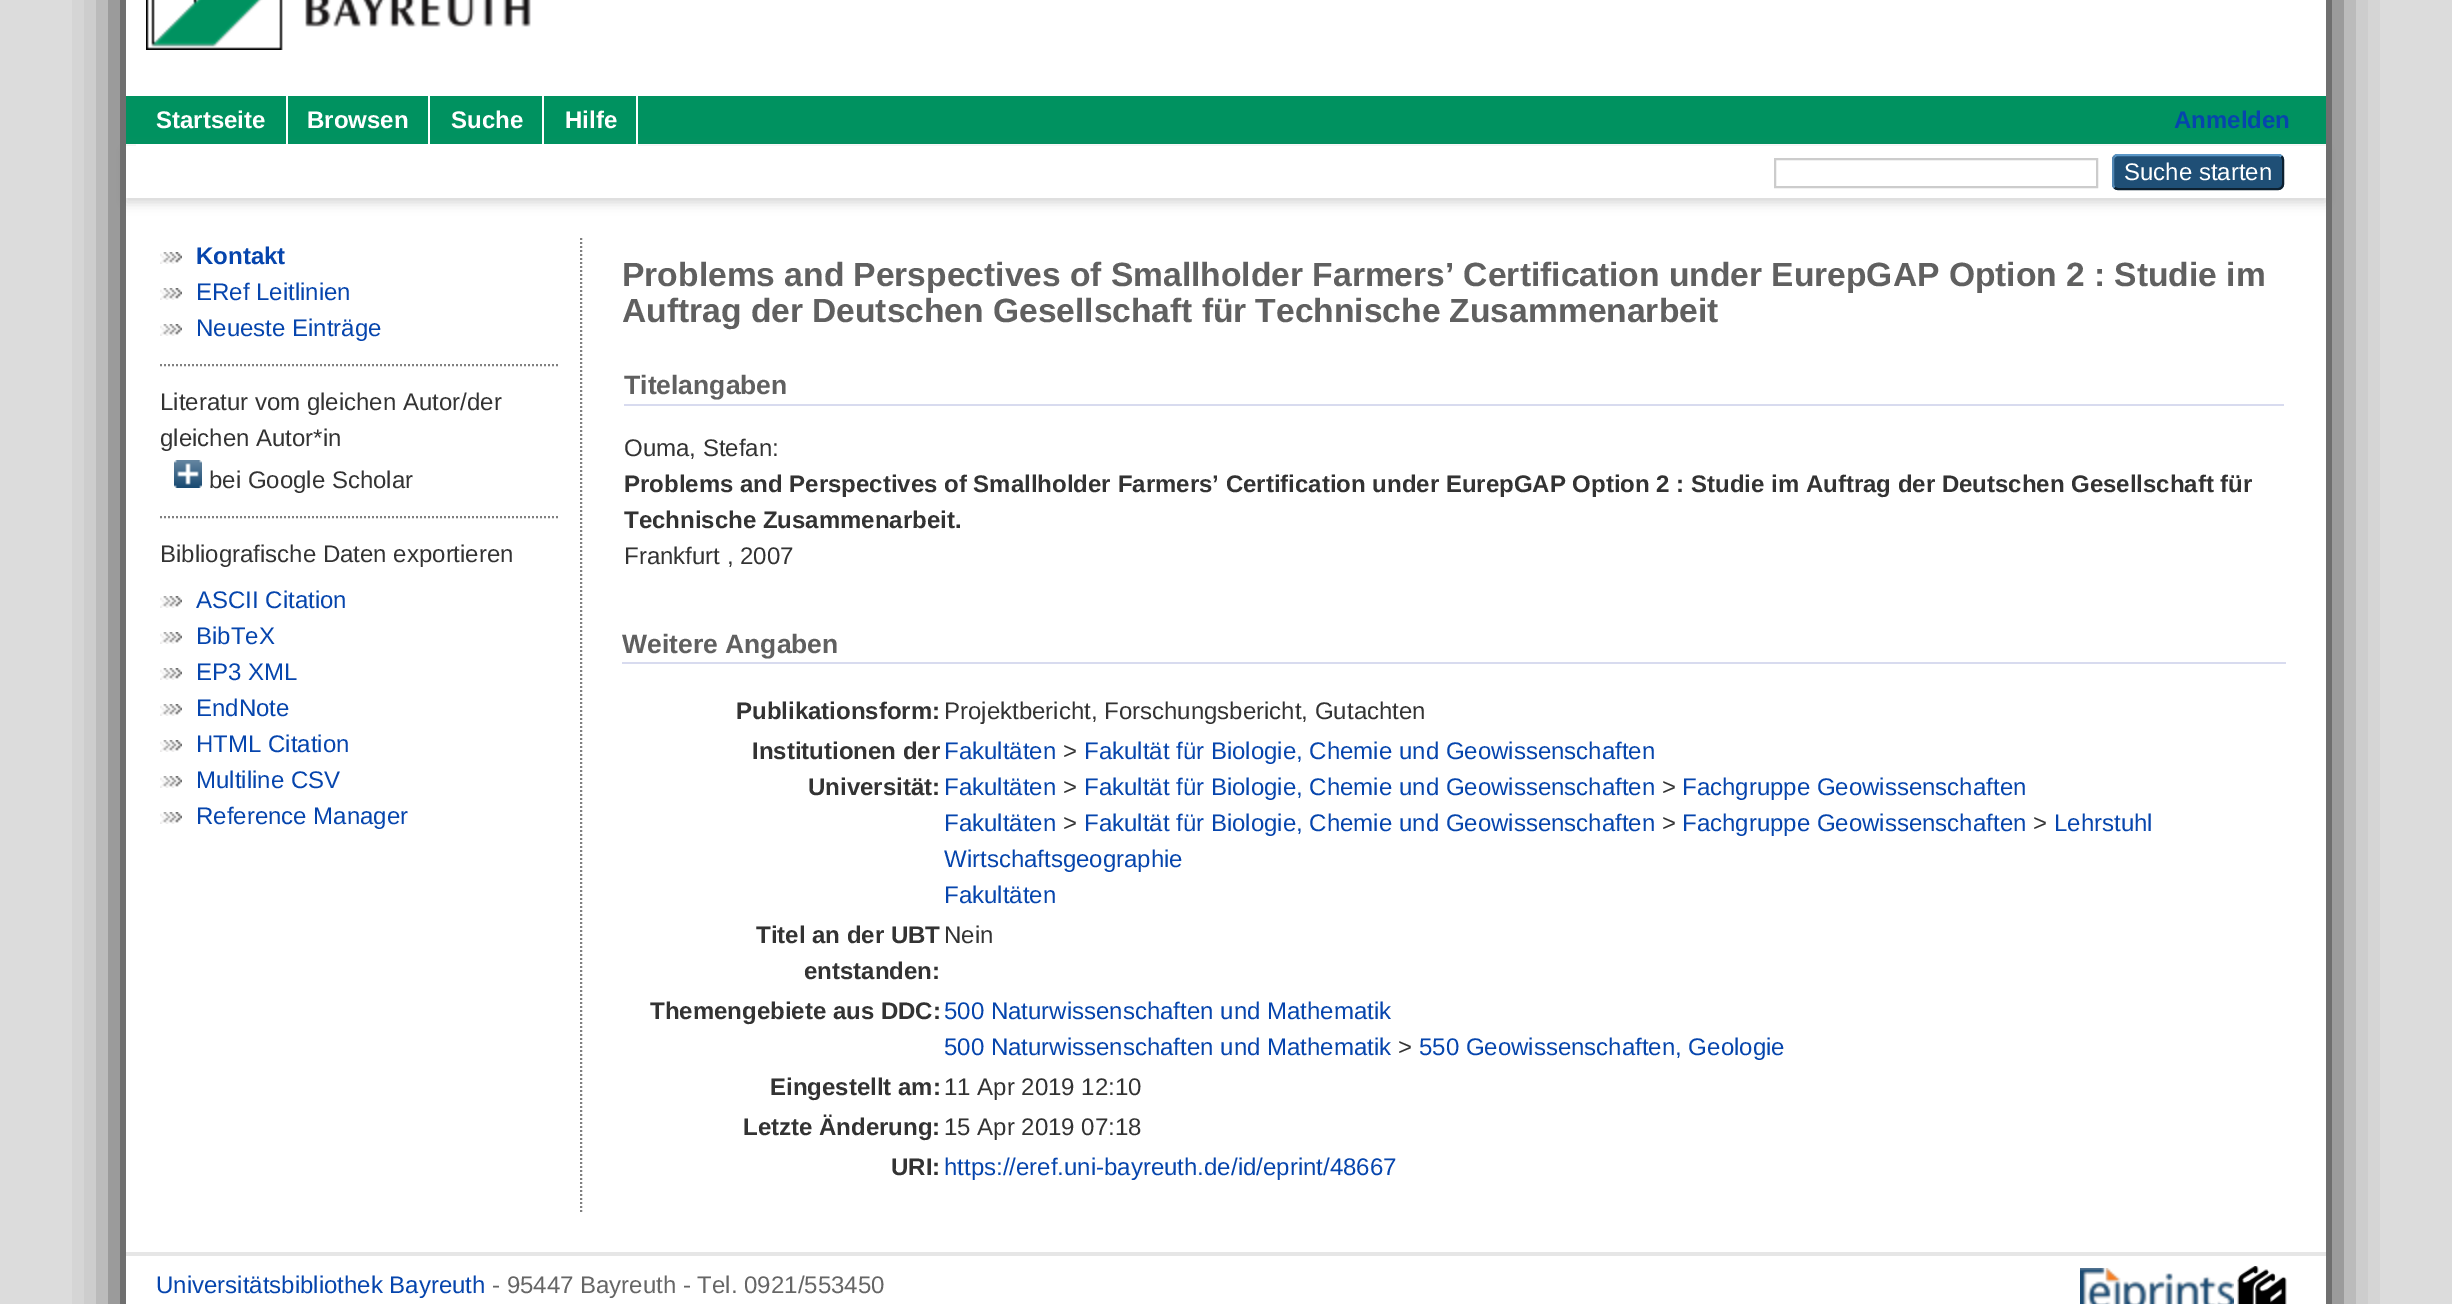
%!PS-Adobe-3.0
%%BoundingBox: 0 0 2452 1304
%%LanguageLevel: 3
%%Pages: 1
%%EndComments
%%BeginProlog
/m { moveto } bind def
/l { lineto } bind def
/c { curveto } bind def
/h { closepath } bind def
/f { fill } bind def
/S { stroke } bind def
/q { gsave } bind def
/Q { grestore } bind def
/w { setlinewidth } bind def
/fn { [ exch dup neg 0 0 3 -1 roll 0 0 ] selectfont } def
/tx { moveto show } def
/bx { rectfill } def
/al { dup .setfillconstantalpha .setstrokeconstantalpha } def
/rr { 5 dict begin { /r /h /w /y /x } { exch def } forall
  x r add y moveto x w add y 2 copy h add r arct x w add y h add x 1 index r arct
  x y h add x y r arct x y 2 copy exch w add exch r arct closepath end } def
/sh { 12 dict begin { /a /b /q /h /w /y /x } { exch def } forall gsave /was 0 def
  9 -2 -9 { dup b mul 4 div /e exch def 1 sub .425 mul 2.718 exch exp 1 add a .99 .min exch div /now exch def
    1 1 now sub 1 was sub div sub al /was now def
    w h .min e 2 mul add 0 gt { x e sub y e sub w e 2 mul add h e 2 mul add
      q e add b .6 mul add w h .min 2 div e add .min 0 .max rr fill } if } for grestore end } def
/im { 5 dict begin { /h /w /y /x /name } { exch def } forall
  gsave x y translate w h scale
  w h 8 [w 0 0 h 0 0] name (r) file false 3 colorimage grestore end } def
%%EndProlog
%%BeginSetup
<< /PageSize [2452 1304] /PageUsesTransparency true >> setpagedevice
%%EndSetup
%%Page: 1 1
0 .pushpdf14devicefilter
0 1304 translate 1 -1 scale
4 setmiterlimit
0.863 setgray
0 0 2452 1304 bx
0 setgray
126 -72 2200 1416 0 24 1 sh
1 setgray
126 0 2200 1304 bx
(image0.raw) 146 0 385 50 im
0 0.573 0.376 setrgbcolor
126 96 2200 48 bx
q
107 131 m 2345 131 l 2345 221 l 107 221 l h 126 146 m 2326 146 l 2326 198 l 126 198 l h eoclip newpath
0.392 setgray
126 150 2200 52 0 6 0.3 sh
Q
136 142 500 2 bx
1 setgray
136 144 502 2 bx
286 96 2 48 bx
/LiberationSans-Bold 24 fn
(Startseite) 156 128 tx
428 96 2 48 bx
(Browsen) 307 128 tx
542 96 2 48 bx
(Suche) 451 128 tx
636 96 2 48 bx
(Hilfe) 565 128 tx
0.024 0.271 0.678 setrgbcolor
(Anmelden) 2174 128 tx
0.8 setgray
2 w
1775 159 322 28 rectstroke
0.122 0.31 0.463 setrgbcolor
2112 154 172 36 6 rr f
0.357 0.592 0.78 setrgbcolor
2114.5 156.5 m 2115.5 155.5 2116.5 155 2118 155 c 2278 155 l 2279.5 155 2280.5 155.5 2281.5 156.5 c S
0.051 0.129 0.192 setrgbcolor
2281.5 156.5 m 2282.5 157.5 2283 158.5 2283 160 c 2283 184 l 2283 185.5 2282.5 186.5 2281.5 187.5 c 2280.5 188.5 2279.5 189 2278 189 c 2118 189 l 2116.5 189 2115.5 188.5 2114.5 187.5 c S
0.322 0.529 0.702 setrgbcolor
2114.5 187.5 m 2113.5 186.5 2113 185.5 2113 184 c 2113 160 l 2113 158.5 2113.5 157.5 2114.5 156.5 c S
/LiberationSans-Regular 24 fn
1 setgray
(Suche starten) 2124 180 tx
(image1.raw) 160 252 22 12 im
/LiberationSans-Bold 24 fn
0.024 0.271 0.678 setrgbcolor
(Kontakt) 196 264 tx
(image1.raw) 160 288 22 12 im
/LiberationSans-Regular 24 fn
(ERef Leitlinien) 196 300 tx
(image1.raw) 160 324 22 12 im
(Neueste Einträge) 196 336 tx
0.502 setgray
[2 2] 0 setdash
160 365 m 560 365 l S
0.2 setgray
(Literatur vom gleichen Autor/der) 160 410 tx
(gleichen Autor*in) 160 446 tx
(image2.raw) 174 460 28 28 im
(bei Google Scholar) 209 488 tx
0.502 setgray
160 517 m 560 517 l S
0.2 setgray
(Bibliografische Daten exportieren) 160 562 tx
(image1.raw) 160 596 22 12 im
0.024 0.271 0.678 setrgbcolor
(ASCII Citation) 196 608 tx
(image1.raw) 160 632 22 12 im
(BibTeX) 196 644 tx
(image1.raw) 160 668 22 12 im
(EP3 XML) 196 680 tx
(image1.raw) 160 704 22 12 im
(EndNote) 196 716 tx
(image1.raw) 160 740 22 12 im
(HTML Citation) 196 752 tx
(image1.raw) 160 776 22 12 im
(Multiline CSV) 196 788 tx
(image1.raw) 160 812 22 12 im
(Reference Manager) 196 824 tx
0.502 setgray
581 238 m 581 1212 l S
/LiberationSans-Bold 33.6 fn
0.376 setgray
622 286 m -0.1 0 32 (Problems and Perspectives of Smallholder Farmers’ Certification under EurepGAP Option 2 : Studie im) widthshow
622 322 m -0.25 0 32 (Auftrag der Deutschen Gesellschaft für Technische Zusammenarbeit) widthshow
0.847 0.859 0.937 setrgbcolor
624 404 1660 2 bx
/LiberationSans-Bold 26.5 fn
0.376 setgray
(Titelangaben) 624 394 tx
/LiberationSans-Regular 24 fn
0.2 setgray
(Ouma, Stefan:) 624 456 tx
/LiberationSans-Bold 24 fn
(Problems and Perspectives of Smallholder Farmers’ Certification under EurepGAP Option 2 : Studie im Auftrag der Deutschen Gesellschaft für) 624 492 tx
(Technische Zusammenarbeit.) 624 528 tx
/LiberationSans-Regular 24 fn
(Frankfurt , 2007) 624 564 tx
0.847 0.859 0.937 setrgbcolor
622 662 1664 2 bx
/LiberationSans-Bold 26.5 fn
0.376 setgray
(Weitere Angaben) 622 653 tx
/LiberationSans-Bold 24 fn
0.2 setgray
(Publikationsform:) 736 719 tx
/LiberationSans-Regular 24 fn
(Projektbericht, Forschungsbericht, Gutachten) 944 719 tx
/LiberationSans-Bold 24 fn
(Institutionen der) 752 759 tx
(Universität:) 808 795 tx
/LiberationSans-Regular 24 fn
0.024 0.271 0.678 setrgbcolor
(Fakultäten) 944 759 tx
0.2 setgray
(>) 1063 759 tx
0.024 0.271 0.678 setrgbcolor
(Fakultät für Biologie, Chemie und Geowissenschaften) 1084 759 tx
(Fakultäten) 944 795 tx
0.2 setgray
(>) 1063 795 tx
0.024 0.271 0.678 setrgbcolor
(Fakultät für Biologie, Chemie und Geowissenschaften) 1084 795 tx
0.2 setgray
(>) 1662 795 tx
0.024 0.271 0.678 setrgbcolor
(Fachgruppe Geowissenschaften) 1682 795 tx
(Fakultäten) 944 831 tx
0.2 setgray
(>) 1063 831 tx
0.024 0.271 0.678 setrgbcolor
(Fakultät für Biologie, Chemie und Geowissenschaften) 1084 831 tx
0.2 setgray
(>) 1662 831 tx
0.024 0.271 0.678 setrgbcolor
(Fachgruppe Geowissenschaften) 1682 831 tx
0.2 setgray
(>) 2033 831 tx
0.024 0.271 0.678 setrgbcolor
(Lehrstuhl) 2054 831 tx
(Wirtschaftsgeographie) 944 867 tx
(Fakultäten) 944 903 tx
/LiberationSans-Bold 24 fn
0.2 setgray
(Titel an der UBT) 756 943 tx
(entstanden:) 804 979 tx
/LiberationSans-Regular 24 fn
(Nein) 944 943 tx
/LiberationSans-Bold 24 fn
(Themengebiete aus DDC:) 650 1019 tx
/LiberationSans-Regular 24 fn
0.024 0.271 0.678 setrgbcolor
(500 Naturwissenschaften und Mathematik) 944 1019 tx
(500 Naturwissenschaften und Mathematik) 944 1055 tx
0.2 setgray
(>) 1398 1055 tx
0.024 0.271 0.678 setrgbcolor
(550 Geowissenschaften, Geologie) 1419 1055 tx
/LiberationSans-Bold 24 fn
0.2 setgray
(Eingestellt am:) 770 1095 tx
/LiberationSans-Regular 24 fn
(11 Apr 2019 12:10) 944 1095 tx
/LiberationSans-Bold 24 fn
(Letzte Änderung:) 743 1135 tx
/LiberationSans-Regular 24 fn
(15 Apr 2019 07:18) 944 1135 tx
/LiberationSans-Bold 24 fn
(URI:) 891 1175 tx
/LiberationSans-Regular 24 fn
0.024 0.271 0.678 setrgbcolor
(https://eref.uni-bayreuth.de/id/eprint/48667) 944 1175 tx
0.902 setgray
126 1252 2200 4 bx
0.024 0.271 0.678 setrgbcolor
(Universitätsbibliothek Bayreuth) 156 1293 tx
0.4 setgray
(- 95447 Bayreuth - Tel. 0921/553450) 492 1293 tx
(image3.raw) 2080 1268 154 36 im
(image4.raw) 2237 1266 50 38 im
.poppdf14devicefilter showpage
%%EOF
